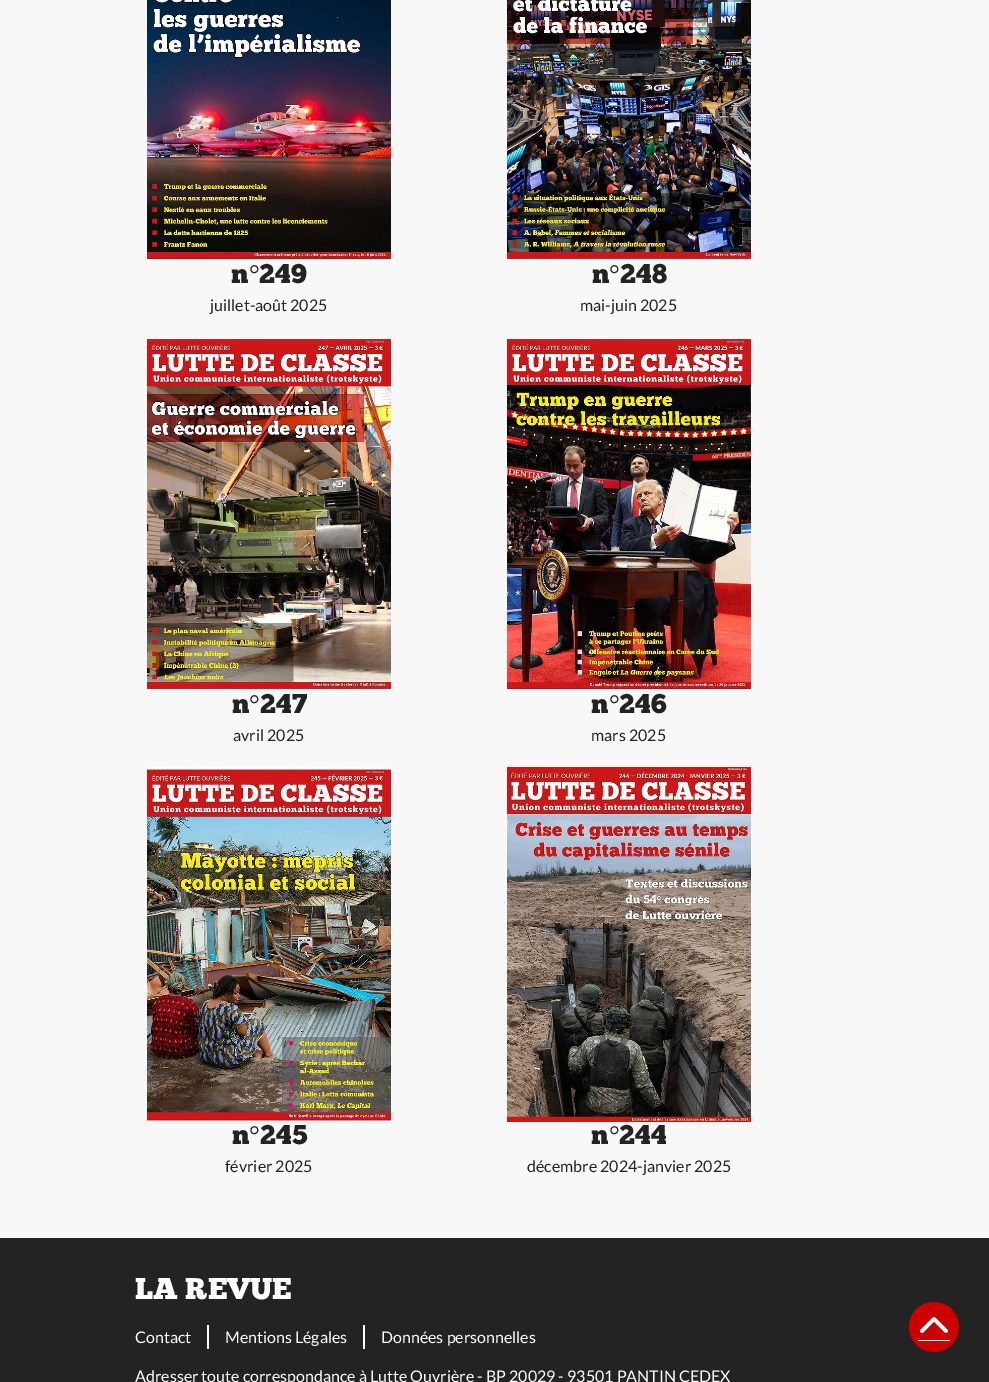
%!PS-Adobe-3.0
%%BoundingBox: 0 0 989 1382
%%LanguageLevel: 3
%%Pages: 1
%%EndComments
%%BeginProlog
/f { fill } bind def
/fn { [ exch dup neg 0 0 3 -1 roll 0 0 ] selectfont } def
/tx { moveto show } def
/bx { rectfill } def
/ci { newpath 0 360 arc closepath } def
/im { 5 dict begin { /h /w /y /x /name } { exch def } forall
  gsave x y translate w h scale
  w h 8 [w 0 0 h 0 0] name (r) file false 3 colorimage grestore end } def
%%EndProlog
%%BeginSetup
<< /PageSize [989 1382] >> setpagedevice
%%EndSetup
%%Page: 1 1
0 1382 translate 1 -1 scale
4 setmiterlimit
0.973 setgray
0 0 989 1382 bx
(image0.raw) 147 0 244 261 im
/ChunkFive-Regular 27 fn
0.137 setgray
(n) 231 283 tx
/LiberationSerif-Regular 27 fn
(°) 249 283 tx
/ChunkFive-Regular 27 fn
(249) 259 283 tx
/Lato-Regular 16 fn
(juillet-août 2025) 210 311 tx
(image1.raw) 507 0 244 261 im
/ChunkFive-Regular 27 fn
(n) 592 283 tx
/LiberationSerif-Regular 27 fn
(°) 609 283 tx
/ChunkFive-Regular 27 fn
(248) 620 283 tx
/Lato-Regular 16 fn
(mai-juin 2025) 580 311 tx
(image2.raw) 147 337 244 354 im
/ChunkFive-Regular 27 fn
(n) 232 713 tx
/LiberationSerif-Regular 27 fn
(°) 249 713 tx
/ChunkFive-Regular 27 fn
(247) 260 713 tx
/Lato-Regular 16 fn
(avril 2025) 233 741 tx
(image3.raw) 507 337 244 354 im
/ChunkFive-Regular 27 fn
(n) 591 713 tx
/LiberationSerif-Regular 27 fn
(°) 609 713 tx
/ChunkFive-Regular 27 fn
(246) 619 713 tx
/Lato-Regular 16 fn
(mars 2025) 591 741 tx
(image4.raw) 147 767 244 355 im
/ChunkFive-Regular 27 fn
(n) 232 1144 tx
/LiberationSerif-Regular 27 fn
(°) 249 1144 tx
/ChunkFive-Regular 27 fn
(245) 260 1144 tx
/Lato-Regular 16 fn
(février 2025) 225 1172 tx
(image5.raw) 507 767 244 355 im
/ChunkFive-Regular 27 fn
(n) 591 1144 tx
/LiberationSerif-Regular 27 fn
(°) 609 1144 tx
/ChunkFive-Regular 27 fn
(244) 619 1144 tx
/Lato-Regular 16 fn
(décembre 2024-janvier 2025) 527 1172 tx
0 1238 989 144 bx
/ChunkFive-Regular 30 fn
1 setgray
(LA REVUE) 135 1299 tx
207 1325 2 24 bx
/Lato-Regular 16 fn
(Contact) 135 1343 tx
363 1325 2 24 bx
(Mentions Légales) 225 1343 tx
(Données personnelles) 381 1343 tx
(Adresser toute correspondance à Lutte Ouvrière - BP 20029 - 93501 PANTIN CEDEX) 135 1382 tx
0.8 0 0 setrgbcolor
934 1327 25 ci f
(image6.raw) 920 1317 28 16 im
1 setgray
918 1340 32 1 bx
showpage
%%EOF
